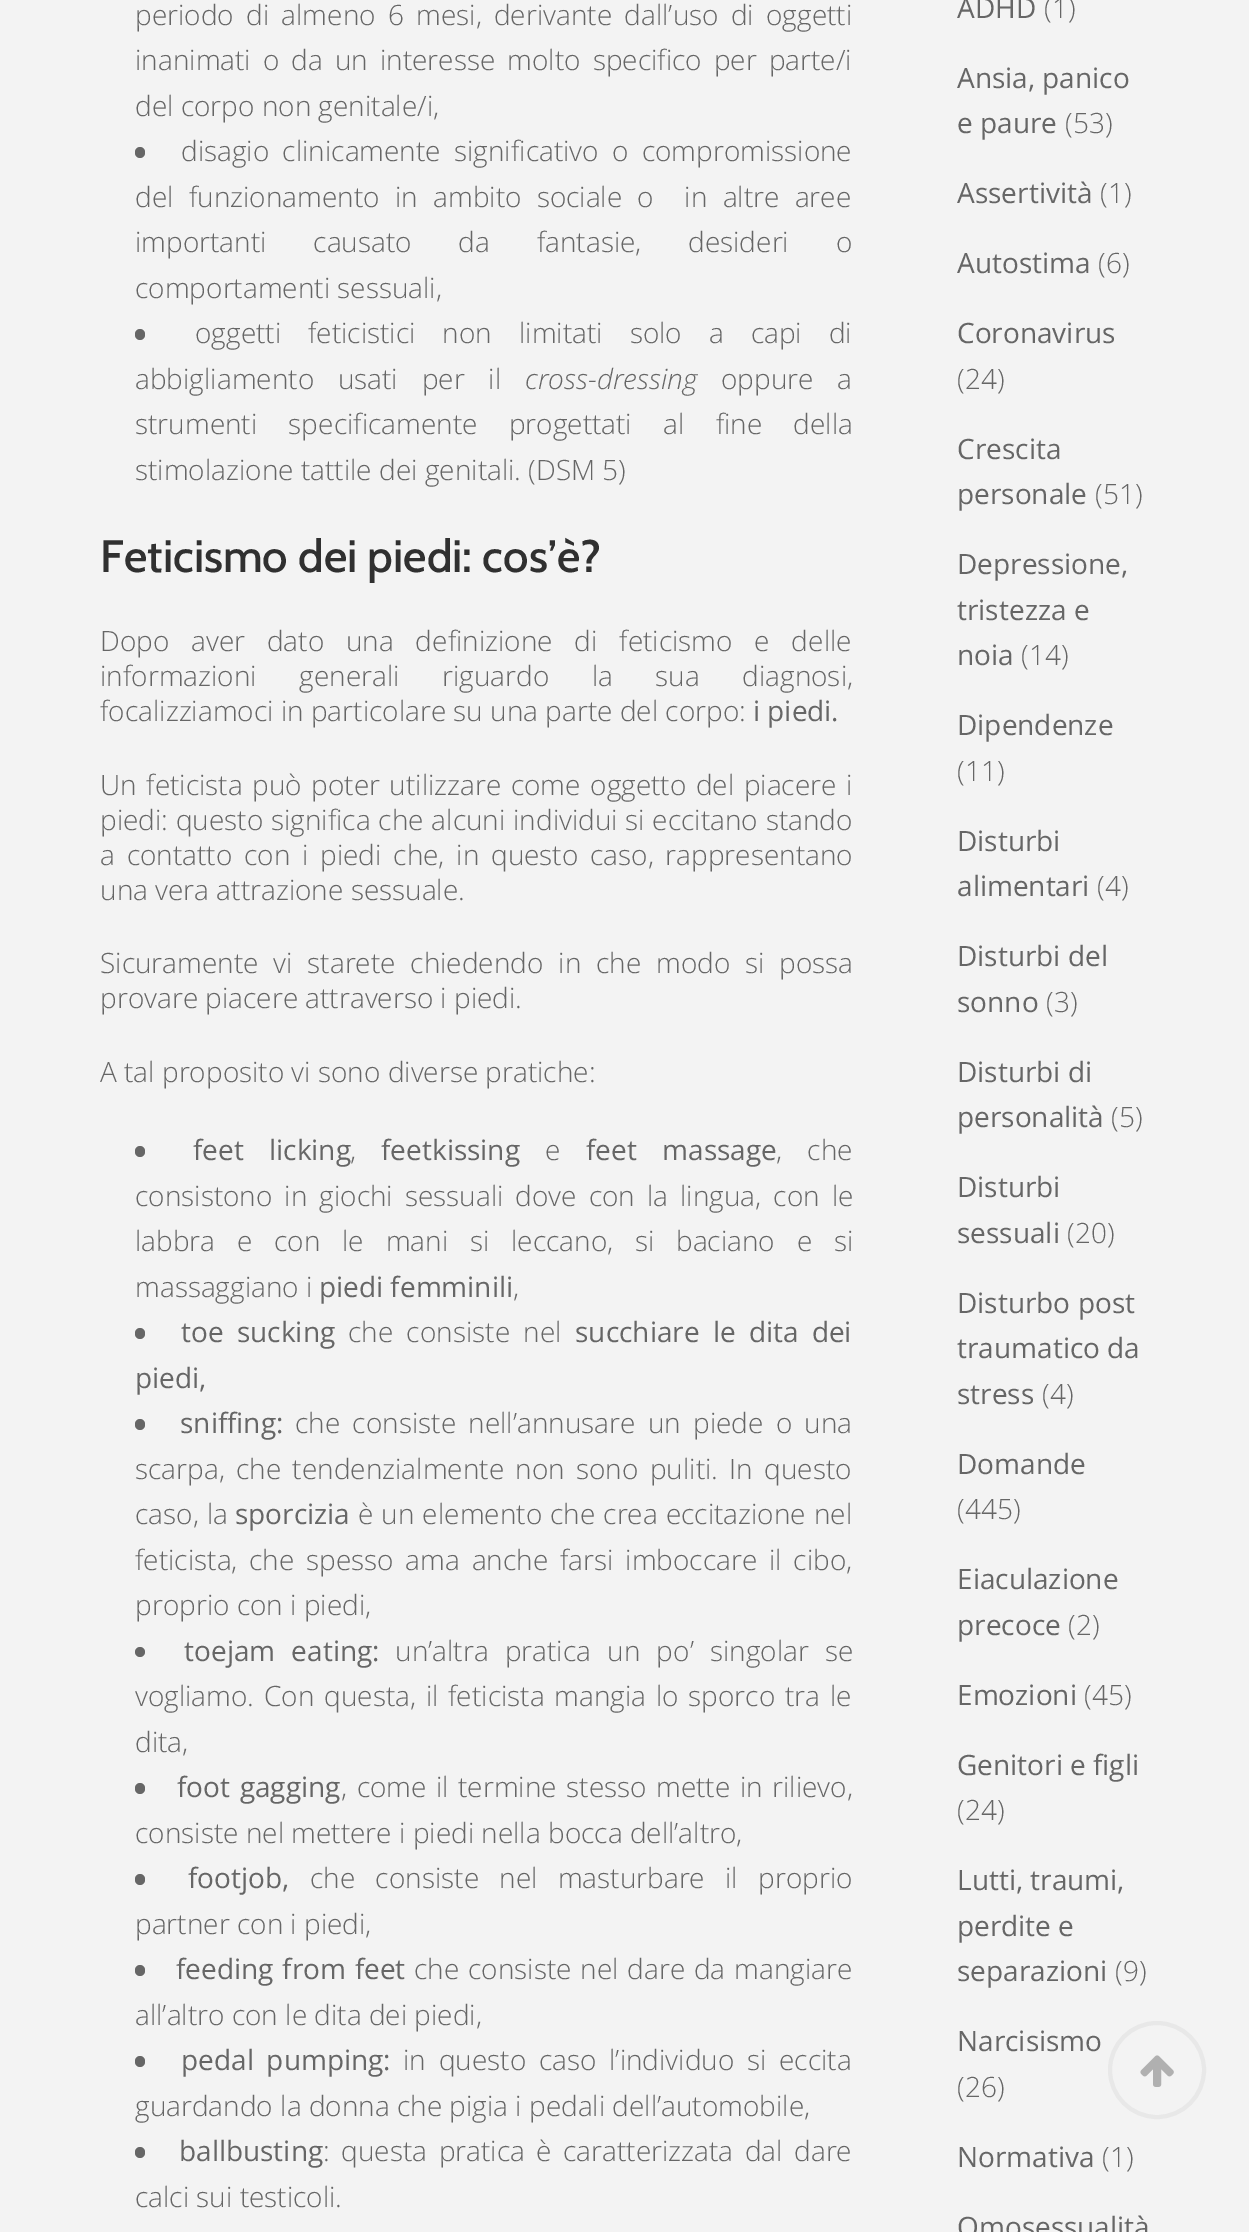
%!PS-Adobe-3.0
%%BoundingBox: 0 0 1249 2232
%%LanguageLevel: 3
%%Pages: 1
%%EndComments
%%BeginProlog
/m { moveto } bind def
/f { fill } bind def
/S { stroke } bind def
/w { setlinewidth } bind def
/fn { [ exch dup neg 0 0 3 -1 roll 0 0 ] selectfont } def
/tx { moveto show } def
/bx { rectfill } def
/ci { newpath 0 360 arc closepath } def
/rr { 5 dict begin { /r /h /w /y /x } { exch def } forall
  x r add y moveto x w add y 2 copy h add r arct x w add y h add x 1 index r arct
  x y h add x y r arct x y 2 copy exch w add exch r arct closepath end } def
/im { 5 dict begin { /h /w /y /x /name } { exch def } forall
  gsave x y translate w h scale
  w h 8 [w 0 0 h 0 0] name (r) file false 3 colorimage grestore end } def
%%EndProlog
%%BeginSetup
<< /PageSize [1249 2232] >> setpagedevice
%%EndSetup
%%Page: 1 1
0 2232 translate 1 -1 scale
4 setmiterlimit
0.953 setgray
0 0 1249 2232 bx
/OpenSans-Light 28 fn
0.4 setgray
135 25 m 5 0 32 (periodo di almeno 6 mesi, derivante dall’uso di oggetti) widthshow
135 70 m 4.75 0 32 (inanimati o da un interesse molto specifico per parte/i) widthshow
(del corpo non genitale/i,) 135 116 tx
135 147 10 11 5 rr f
181 161 m 6 0 32 (disagio clinicamente significativo o compromissione) widthshow
135 207 m 8 0 32 (del funzionamento in ambito sociale o  in altre aree) widthshow
135 252 m 39.5 0 32 (importanti causato da fantasie, desideri o) widthshow
(comportamenti sessuali,) 135 298 tx
135 329 10 11 5 rr f
195 343 m 19.75 0 32 (oggetti feticistici non limitati solo a capi di) widthshow
135 389 m 16.5 0 32 (abbigliamento usati per il) widthshow
/OpenSans-LightItalic 28 fn
(cross-dressing) 525 389 tx
/OpenSans-Light 28 fn
721 389 m 16.5 0 32 (oppure a) widthshow
135 434 m 24 0 32 (strumenti specificamente progettati al fine della) widthshow
(stimolazione tattile dei genitali. \(DSM 5\)) 135 480 tx
/Cabin-Medium 45.5 fn
0.188 setgray
(Feticismo dei piedi: cos’è?) 100 572 tx
/OpenSans-Light 28 fn
0.4 setgray
100 651 m 14.5 0 32 (Dopo aver dato una definizione di feticismo e delle) widthshow
100 686 m 35.25 0 32 (informazioni generali riguardo la sua diagnosi,) widthshow
(focalizziamoci in particolare su una parte del corpo:) 100 721 tx
/OpenSans-Regular 28 fn
(i piedi.) 753 721 tx
/OpenSans-Light 28 fn
100 795 m 2.25 0 32 (Un feticista può poter utilizzare come oggetto del piacere i) widthshow
100 830 m 0.5 0 32 (piedi: questo significa che alcuni individui si eccitano stando) widthshow
100 865 m 4.5 0 32 (a contatto con i piedi che, in questo caso, rappresentano) widthshow
(una vera attrazione sessuale.) 100 900 tx
100 973 m 7.5 0 32 (Sicuramente vi starete chiedendo in che modo si possa) widthshow
(provare piacere attraverso i piedi.) 100 1008 tx
(A tal proposito vi sono diverse pratiche:) 100 1082 tx
135 1146 10 11 5 rr f
/OpenSans-Regular 28 fn
193 1160 m 18 0 32 (feet licking) widthshow
(feetkissing) 381 1160 tx
/OpenSans-Light 28 fn
(e) 545 1160 tx
/OpenSans-Regular 28 fn
586 1160 m 18 0 32 (feet massage) widthshow
/OpenSans-Light 28 fn
776 1160 m 18 0 32 (, che) widthshow
(,) 350 1160 tx
135 1206 m 4.75 0 32 (consistono in giochi sessuali dove con la lingua, con le) widthshow
135 1251 m 14.5 0 32 (labbra e con le mani si leccano, si baciano e si) widthshow
(massaggiano i) 135 1297 tx
/OpenSans-Regular 28 fn
(piedi femminili) 319 1297 tx
/OpenSans-Light 28 fn
(,) 513 1297 tx
135 1328 10 11 5 rr f
/OpenSans-Regular 28 fn
181 1342 m 6 0 32 (toe sucking) widthshow
/OpenSans-Light 28 fn
348 1342 m 6 0 32 (che consiste nel) widthshow
/OpenSans-Regular 28 fn
575 1342 m 6 0 32 (succhiare le dita dei) widthshow
(piedi,) 135 1388 tx
135 1419 10 11 5 rr f
(sniffing:) 180 1433 tx
/OpenSans-Light 28 fn
295 1433 m 5 0 32 (che consiste nell’annusare un piede o una) widthshow
135 1479 m 4 0 32 (scarpa, che tendenzialmente non sono puliti. In questo) widthshow
135 1524 m 0.75 0 32 (caso, la) widthshow
/OpenSans-Regular 28 fn
(sporcizia) 235 1524 tx
/OpenSans-Light 28 fn
358 1524 m 0.75 0 32 (è un elemento che crea eccitazione nel) widthshow
135 1570 m 4.5 0 32 (feticista, che spesso ama anche farsi imboccare il cibo,) widthshow
(proprio con i piedi,) 135 1615 tx
140 1652 5 ci f
/OpenSans-Regular 28 fn
184 1661 m 9 0 32 (toejam eating:) widthshow
/OpenSans-Light 28 fn
395 1661 m 9 0 32 (un’altra pratica un po’ singolar se) widthshow
135 1706 m 2.5 0 32 (vogliamo. Con questa, il feticista mangia lo sporco tra le) widthshow
(dita,) 135 1752 tx
135 1783 10 11 5 rr f
/OpenSans-Regular 28 fn
177 1797 m 2.25 0 32 (foot gagging) widthshow
/OpenSans-Light 28 fn
341 1797 m 2.25 0 32 (, come il termine stesso mette in rilievo,) widthshow
(consiste nel mettere i piedi nella bocca dell’altro,) 135 1843 tx
135 1874 10 11 5 rr f
/OpenSans-Regular 28 fn
(footjob,) 188 1888 tx
/OpenSans-Light 28 fn
310 1888 m 13 0 32 (che consiste nel masturbare il proprio) widthshow
(partner con i piedi,) 135 1934 tx
135 1965 10 11 5 rr f
/OpenSans-Regular 28 fn
176 1979 m 1.5 0 32 (feeding from feet) widthshow
/OpenSans-Light 28 fn
414 1979 m 1.5 0 32 (che consiste nel dare da mangiare) widthshow
(all’altro con le dita dei piedi,) 135 2025 tx
135 2056 10 11 5 rr f
/OpenSans-Regular 28 fn
181 2070 m 5.5 0 32 (pedal pumping:) widthshow
/OpenSans-Light 28 fn
403 2070 m 5.5 0 32 (in questo caso l’individuo si eccita) widthshow
(guardando la donna che pigia i pedali dell’automobile,) 135 2116 tx
135 2147 10 11 5 rr f
/OpenSans-Regular 28 fn
(ballbusting) 179 2161 tx
/OpenSans-Light 28 fn
323 2161 m 4.25 0 32 (: questa pratica è caratterizzata dal dare) widthshow
(calci sui testicoli.) 135 2207 tx
/OpenSans-Regular 28 fn
(ADHD) 957 18 tx
/OpenSans-Light 28 fn
(\(1\)) 1044 18 tx
/OpenSans-Regular 28 fn
(Ansia, panico) 957 88 tx
(e paure) 957 133 tx
/OpenSans-Light 28 fn
(\(53\)) 1065 133 tx
/OpenSans-Regular 28 fn
(Assertività) 957 203 tx
/OpenSans-Light 28 fn
(\(1\)) 1100 203 tx
/OpenSans-Regular 28 fn
(Autostima) 957 273 tx
/OpenSans-Light 28 fn
(\(6\)) 1098 273 tx
/OpenSans-Regular 28 fn
(Coronavirus) 957 343 tx
/OpenSans-Light 28 fn
(\(24\)) 957 389 tx
/OpenSans-Regular 28 fn
(Crescita) 957 459 tx
(personale) 957 504 tx
/OpenSans-Light 28 fn
(\(51\)) 1095 504 tx
/OpenSans-Regular 28 fn
(Depressione,) 957 574 tx
(tristezza e) 957 620 tx
(noia) 957 665 tx
/OpenSans-Light 28 fn
(\(14\)) 1021 665 tx
/OpenSans-Regular 28 fn
(Dipendenze) 957 735 tx
/OpenSans-Light 28 fn
(\(11\)) 957 781 tx
/OpenSans-Regular 28 fn
(Disturbi) 957 851 tx
(alimentari) 957 896 tx
/OpenSans-Light 28 fn
(\(4\)) 1097 896 tx
/OpenSans-Regular 28 fn
(Disturbi del) 957 966 tx
(sonno) 957 1012 tx
/OpenSans-Light 28 fn
(\(3\)) 1046 1012 tx
/OpenSans-Regular 28 fn
(Disturbi di) 957 1082 tx
(personalità) 957 1127 tx
/OpenSans-Light 28 fn
(\(5\)) 1111 1127 tx
/OpenSans-Regular 28 fn
(Disturbi) 957 1197 tx
(sessuali) 957 1243 tx
/OpenSans-Light 28 fn
(\(20\)) 1067 1243 tx
/OpenSans-Regular 28 fn
(Disturbo post) 957 1313 tx
(traumatico da) 957 1358 tx
(stress) 957 1404 tx
/OpenSans-Light 28 fn
(\(4\)) 1042 1404 tx
/OpenSans-Regular 28 fn
(Domande) 957 1474 tx
/OpenSans-Light 28 fn
(\(445\)) 957 1519 tx
/OpenSans-Regular 28 fn
(Eiaculazione) 957 1589 tx
(precoce) 957 1635 tx
/OpenSans-Light 28 fn
(\(2\)) 1068 1635 tx
/OpenSans-Regular 28 fn
(Emozioni) 957 1705 tx
/OpenSans-Light 28 fn
(\(45\)) 1084 1705 tx
/OpenSans-Regular 28 fn
(Genitori e figli) 957 1775 tx
/OpenSans-Light 28 fn
(\(24\)) 957 1820 tx
/OpenSans-Regular 28 fn
(Lutti, traumi,) 957 1890 tx
(perdite e) 957 1936 tx
(separazioni) 957 1981 tx
/OpenSans-Light 28 fn
(\(9\)) 1115 1981 tx
/OpenSans-Regular 28 fn
(Narcisismo) 957 2051 tx
/OpenSans-Light 28 fn
(\(26\)) 957 2097 tx
/OpenSans-Regular 28 fn
(Normativa) 957 2167 tx
/OpenSans-Light 28 fn
(\(1\)) 1102 2167 tx
/OpenSans-Regular 28 fn
(Omosessualità) 957 2237 tx
0.91 setgray
4 w
1157 2070 47 ci S
(image0.raw) 1140 2055 34 32 im
showpage
%%EOF
